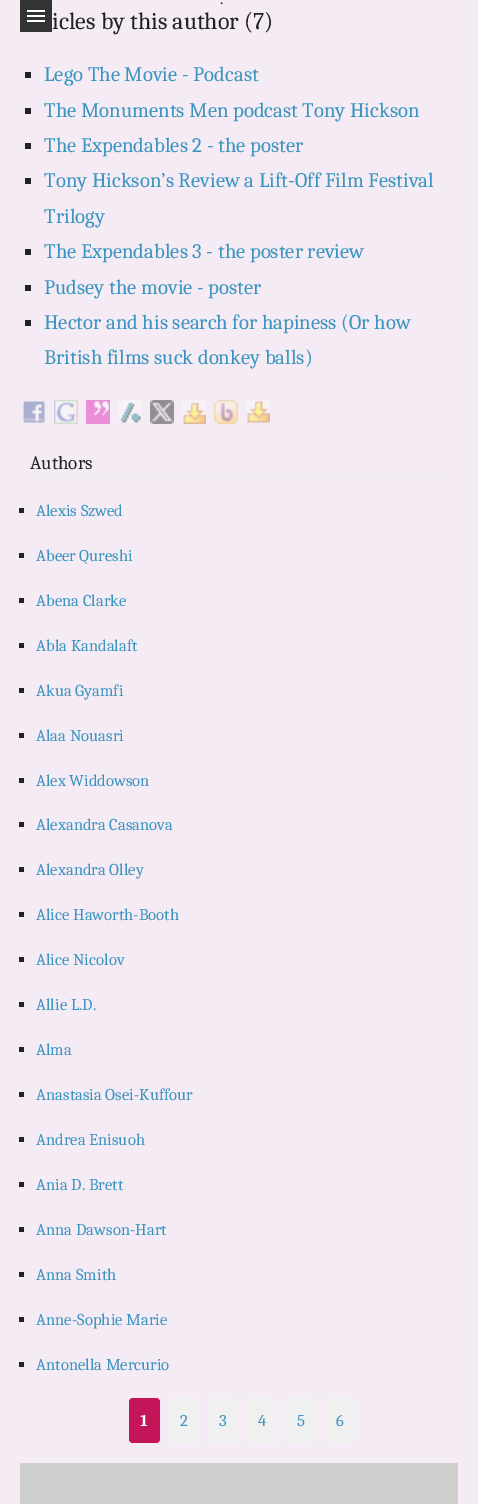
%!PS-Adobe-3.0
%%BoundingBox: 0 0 478 1504
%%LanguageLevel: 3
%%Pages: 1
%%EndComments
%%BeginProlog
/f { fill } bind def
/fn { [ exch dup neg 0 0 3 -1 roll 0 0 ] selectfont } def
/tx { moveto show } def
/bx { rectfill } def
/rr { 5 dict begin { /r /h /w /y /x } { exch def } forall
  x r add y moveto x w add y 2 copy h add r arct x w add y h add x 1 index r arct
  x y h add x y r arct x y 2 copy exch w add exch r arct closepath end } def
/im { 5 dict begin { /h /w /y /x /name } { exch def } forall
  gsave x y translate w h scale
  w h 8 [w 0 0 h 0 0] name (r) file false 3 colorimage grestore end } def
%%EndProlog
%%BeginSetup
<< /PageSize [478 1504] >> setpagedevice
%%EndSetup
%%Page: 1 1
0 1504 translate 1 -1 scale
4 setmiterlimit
0.961 0.922 0.957 setrgbcolor
0 0 478 1504 bx
0.2 setgray
20 0 32 32 bx
1 setgray
27 10 18 2 bx
27 15 18 2 bx
27 20 18 2 bx
/Caladea-Regular 16 fn
0.133 setgray
(.) 220 4 tx
/Caladea-Regular 24 fn
(icles by this author \(7\)) 52 29 tx
25 72 6 6 bx
/Caladea-Regular 20.75 fn
0.231 0.584 0.753 setrgbcolor
(Lego The Movie - Podcast) 44 81 tx
0.133 setgray
25 108 6 6 bx
0.231 0.584 0.753 setrgbcolor
(The Monuments Men podcast Tony Hickson) 44 117 tx
0.133 setgray
25 143 6 6 bx
0.231 0.584 0.753 setrgbcolor
(The Expendables 2 - the poster) 44 152 tx
0.133 setgray
25 178 6 6 bx
0.231 0.584 0.753 setrgbcolor
(Tony Hickson’s Review a Lift-Off Film Festival) 44 187 tx
(Trilogy) 44 223 tx
0.133 setgray
25 249 6 6 bx
0.231 0.584 0.753 setrgbcolor
(The Expendables 3 - the poster review) 44 258 tx
0.133 setgray
25 285 6 6 bx
0.231 0.584 0.753 setrgbcolor
(Pudsey the movie - poster) 44 294 tx
0.133 setgray
25 320 6 6 bx
0.231 0.584 0.753 setrgbcolor
(Hector and his search for hapiness \(Or how) 44 329 tx
(British films suck donkey balls\)) 44 364 tx
(image0.raw) 23 401 22 22 im
(image1.raw) 54 400 24 24 im
(image2.raw) 86 400 24 24 im
(image3.raw) 118 400 24 23 im
(image4.raw) 150 400 24 24 im
(image5.raw) 182 400 24 24 im
(image6.raw) 214 400 24 24 im
(image7.raw) 246 400 24 23 im
0.933 setgray
30 475 418 3 bx
/Caladea-Regular 19 fn
0.133 setgray
(Authors) 30 469 tx
19 508 5 5 bx
/Caladea-Regular 16.6 fn
0.231 0.584 0.753 setrgbcolor
(Alexis Szwed) 36 516 tx
0.133 setgray
19 553 5 5 bx
0.231 0.584 0.753 setrgbcolor
(Abeer Qureshi) 36 561 tx
0.133 setgray
19 598 5 5 bx
0.231 0.584 0.753 setrgbcolor
(Abena Clarke) 36 606 tx
0.133 setgray
19 643 5 5 bx
0.231 0.584 0.753 setrgbcolor
(Abla Kandalaft) 36 651 tx
0.133 setgray
19 688 5 5 bx
0.231 0.584 0.753 setrgbcolor
(Akua Gyamfi) 36 696 tx
0.133 setgray
19 733 5 5 bx
0.231 0.584 0.753 setrgbcolor
(Alaa Nouasri) 36 741 tx
0.133 setgray
19 778 5 5 bx
0.231 0.584 0.753 setrgbcolor
(Alex Widdowson) 36 786 tx
0.133 setgray
19 822 5 5 bx
0.231 0.584 0.753 setrgbcolor
(Alexandra Casanova) 36 830 tx
0.133 setgray
19 867 5 5 bx
0.231 0.584 0.753 setrgbcolor
(Alexandra Olley) 36 875 tx
0.133 setgray
19 912 5 5 bx
0.231 0.584 0.753 setrgbcolor
(Alice Haworth-Booth) 36 920 tx
0.133 setgray
19 957 5 5 bx
0.231 0.584 0.753 setrgbcolor
(Alice Nicolov) 36 965 tx
0.133 setgray
19 1002 5 5 bx
0.231 0.584 0.753 setrgbcolor
(Allie L.D.) 36 1010 tx
0.133 setgray
19 1047 5 5 bx
0.231 0.584 0.753 setrgbcolor
(Alma) 36 1055 tx
0.133 setgray
19 1092 5 5 bx
0.231 0.584 0.753 setrgbcolor
(Anastasia Osei-Kuffour) 36 1100 tx
0.133 setgray
19 1137 5 5 bx
0.231 0.584 0.753 setrgbcolor
(Andrea Enisuoh) 36 1145 tx
0.133 setgray
19 1182 5 5 bx
0.231 0.584 0.753 setrgbcolor
(Ania D. Brett) 36 1190 tx
0.133 setgray
19 1227 5 5 bx
0.231 0.584 0.753 setrgbcolor
(Anna Dawson-Hart) 36 1235 tx
0.133 setgray
19 1272 5 5 bx
0.231 0.584 0.753 setrgbcolor
(Anna Smith) 36 1280 tx
0.133 setgray
19 1317 5 5 bx
0.231 0.584 0.753 setrgbcolor
(Anne-Sophie Marie) 36 1325 tx
0.133 setgray
19 1362 5 5 bx
0.231 0.584 0.753 setrgbcolor
(Antonella Mercurio) 36 1370 tx
0.769 0.082 0.345 setrgbcolor
129 1398 31 45 4 rr f
/Caladea-Bold 16.6 fn
1 setgray
(1) 140 1426 tx
0.941 setgray
168 1398 31 45 4 rr f
/Caladea-Regular 16.6 fn
0.231 0.584 0.753 setrgbcolor
(2) 180 1426 tx
0.941 setgray
207 1398 31 45 4 rr f
0.231 0.584 0.753 setrgbcolor
(3) 219 1426 tx
0.941 setgray
246 1398 31 45 4 rr f
0.231 0.584 0.753 setrgbcolor
(4) 258 1426 tx
0.941 setgray
286 1398 30 45 4 rr f
0.231 0.584 0.753 setrgbcolor
(5) 297 1426 tx
0.941 setgray
325 1398 31 45 4 rr f
0.231 0.584 0.753 setrgbcolor
(6) 336 1426 tx
0.808 setgray
20 1463 438 41 bx
showpage
%%EOF
